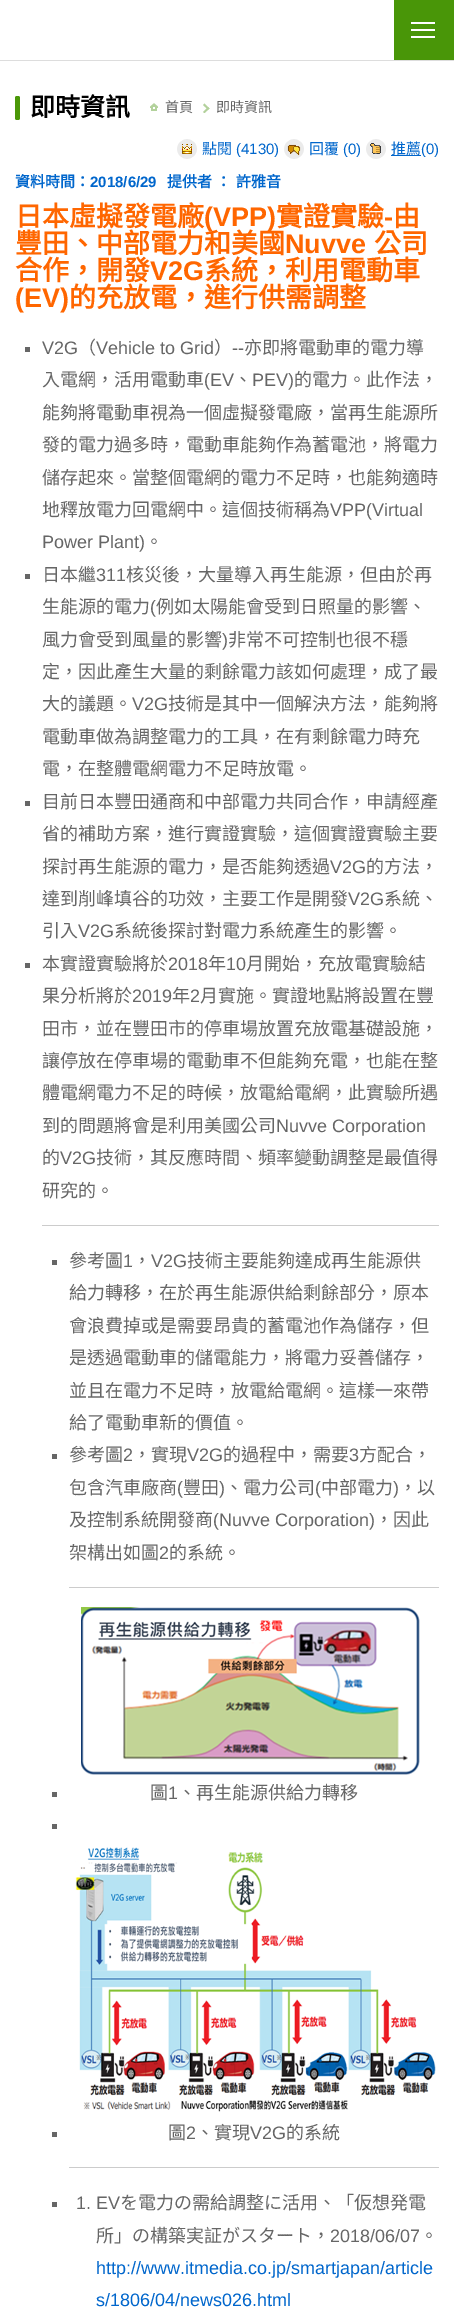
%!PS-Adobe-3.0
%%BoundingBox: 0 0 454 2320
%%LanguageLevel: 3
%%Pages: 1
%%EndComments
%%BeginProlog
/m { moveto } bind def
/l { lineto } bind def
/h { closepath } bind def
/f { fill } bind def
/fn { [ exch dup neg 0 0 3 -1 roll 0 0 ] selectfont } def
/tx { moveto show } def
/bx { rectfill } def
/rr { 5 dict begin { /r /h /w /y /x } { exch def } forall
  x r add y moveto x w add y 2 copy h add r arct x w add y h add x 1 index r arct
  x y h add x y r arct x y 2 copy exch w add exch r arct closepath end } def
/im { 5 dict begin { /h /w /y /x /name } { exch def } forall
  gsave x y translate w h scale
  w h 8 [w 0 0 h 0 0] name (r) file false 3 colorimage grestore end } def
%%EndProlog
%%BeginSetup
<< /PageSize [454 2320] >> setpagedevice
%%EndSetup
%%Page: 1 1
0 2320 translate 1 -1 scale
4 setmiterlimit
1 setgray
0 0 454 2320 bx
0.286 0.588 0.031 setrgbcolor
394 0 60 60 bx
1 setgray
411 29 24 2 bx
411 22 24 2 bx
411 36 24 2 bx
0.867 setgray
0 60 454 1 bx
0.294 0.596 0.031 setrgbcolor
15 96 5 24 2 rr f
/NotoSansCJKTC-Bold 25 fn
0 setgray
(即時資訊) 30 116 tx
(image0.raw) 150 103 8 8 im
/NotoSansCJKTC-Regular 14 fn
0.4 setgray
(首頁) 165 112 tx
0.702 0.82 0.612 setrgbcolor
204.5 103.5 m 209.5 108.5 l 208 109.5 l 203 105 l h f
208 107 m 209.5 108.5 l 204.5 113 l 203 112 l h f
0.4 setgray
(即時資訊) 216 112 tx
(image1.raw) 177 139 20 20 im
/NotoSansCJKTC-Regular 15 fn
0 0.4 0.8 setrgbcolor
(點閱) 202 154 tx
/LiberationSans-Regular 15 fn
(\(4130\)) 236 154 tx
(image2.raw) 284 139 20 20 im
/NotoSansCJKTC-Regular 15 fn
(回覆) 309 154 tx
/LiberationSans-Regular 15 fn
(\(0\)) 343 154 tx
(image3.raw) 366 139 20 20 im
391 155 30 1 bx
/NotoSansCJKTC-Regular 15 fn
(推薦) 391 154 tx
/LiberationSans-Regular 15 fn
(\(0\)) 421 154 tx
/NotoSansCJKTC-Bold 15 fn
(資料時間：) 15 187 tx
/LiberationSans-Bold 15 fn
(2018/6/29) 90 187 tx
/NotoSansCJKTC-Bold 15 fn
167 187 m 1 0 32 (提供者 ： 許雅音) widthshow
/NotoSansCJKTC-Bold 27 fn
1 0.4 0 setrgbcolor
(日本虛擬發電廠) 15 226 tx
/LiberationSans-Bold 27 fn
(\(VPP\)) 204 226 tx
/NotoSansCJKTC-Bold 27 fn
(實證實驗) 276 226 tx
/LiberationSans-Bold 27 fn
(-) 384 226 tx
/NotoSansCJKTC-Bold 27 fn
(由) 393 226 tx
(豐田、中部電力和美國) 15 253 tx
/LiberationSans-Bold 27 fn
(Nuvve) 285 253 tx
/NotoSansCJKTC-Bold 27 fn
(公司) 374 253 tx
(合作，開發) 15 280 tx
/LiberationSans-Bold 27 fn
(V2G) 150 280 tx
/NotoSansCJKTC-Bold 27 fn
(系統，利用電動車) 204 280 tx
/LiberationSans-Bold 27 fn
(\(EV\)) 15 307 tx
/NotoSansCJKTC-Bold 27 fn
(的充放電，進行供需調整) 69 307 tx
0.4 setgray
25 347 5 5 bx
/LiberationSans-Regular 18 fn
(V2G) 42 354 tx
/NotoSansCJKTC-Regular 18 fn
(（) 78 354 tx
/LiberationSans-Regular 18 fn
(Vehicle to Grid) 96 354 tx
/NotoSansCJKTC-Regular 18 fn
(）) 214 354 tx
/LiberationSans-Regular 18 fn
(--) 232 354 tx
/NotoSansCJKTC-Regular 18 fn
(亦即將電動車的電力導) 244 354 tx
(入電網，活用電動車) 42 386 tx
/LiberationSans-Regular 18 fn
(\(EV) 204 386 tx
/NotoSansCJKTC-Regular 18 fn
(、) 234 386 tx
/LiberationSans-Regular 18 fn
(PEV\)) 252 386 tx
/NotoSansCJKTC-Regular 18 fn
(的電力。此作法，) 294 386 tx
(能夠將電動車視為一個虛擬發電廠，當再生能源所) 42 419 tx
(發的電力過多時，電動車能夠作為蓄電池，將電力) 42 451 tx
(儲存起來。當整個電網的電力不足時，也能夠適時) 42 484 tx
(地釋放電力回電網中。這個技術稱為) 42 516 tx
/LiberationSans-Regular 18 fn
(VPP\(Virtual) 330 516 tx
(Power Plant\)) 42 548 tx
/NotoSansCJKTC-Regular 18 fn
(。) 145 548 tx
25 574 5 5 bx
(日本繼) 42 581 tx
/LiberationSans-Regular 18 fn
(311) 96 581 tx
/NotoSansCJKTC-Regular 18 fn
(核災後，大量導入再生能源，但由於再) 126 581 tx
(生能源的電力) 42 613 tx
/LiberationSans-Regular 18 fn
(\() 150 613 tx
/NotoSansCJKTC-Regular 18 fn
(例如太陽能會受到日照量的影響、) 156 613 tx
(風力會受到風量的影響) 42 646 tx
/LiberationSans-Regular 18 fn
(\)) 222 646 tx
/NotoSansCJKTC-Regular 18 fn
(非常不可控制也很不穩) 228 646 tx
(定，因此產生大量的剩餘電力該如何處理，成了最) 42 678 tx
(大的議題。) 42 710 tx
/LiberationSans-Regular 18 fn
(V2G) 132 710 tx
/NotoSansCJKTC-Regular 18 fn
(技術是其中一個解決方法，能夠將) 168 710 tx
(電動車做為調整電力的工具，在有剩餘電力時充) 42 743 tx
(電，在整體電網電力不足時放電。) 42 775 tx
25 801 5 5 bx
(目前日本豐田通商和中部電力共同合作，申請經產) 42 808 tx
(省的補助方案，進行實證實驗，這個實證實驗主要) 42 840 tx
(探討再生能源的電力，是否能夠透過) 42 873 tx
/LiberationSans-Regular 18 fn
(V2G) 330 873 tx
/NotoSansCJKTC-Regular 18 fn
(的方法，) 366 873 tx
(達到削峰填谷的功效，主要工作是開發) 42 905 tx
/LiberationSans-Regular 18 fn
(V2G) 348 905 tx
/NotoSansCJKTC-Regular 18 fn
(系統、) 384 905 tx
(引入) 42 937 tx
/LiberationSans-Regular 18 fn
(V2G) 78 937 tx
/NotoSansCJKTC-Regular 18 fn
(系統後探討對電力系統產生的影響。) 114 937 tx
25 963 5 5 bx
(本實證實驗將於) 42 970 tx
/LiberationSans-Regular 18 fn
(2018) 168 970 tx
/NotoSansCJKTC-Regular 18 fn
(年) 208 970 tx
/LiberationSans-Regular 18 fn
(10) 226 970 tx
/NotoSansCJKTC-Regular 18 fn
(月開始，充放電實驗結) 246 970 tx
(果分析將於) 42 1002 tx
/LiberationSans-Regular 18 fn
(2019) 132 1002 tx
/NotoSansCJKTC-Regular 18 fn
(年) 172 1002 tx
/LiberationSans-Regular 18 fn
(2) 190 1002 tx
/NotoSansCJKTC-Regular 18 fn
(月實施。實證地點將設置在豐) 200 1002 tx
(田市，並在豐田市的停車場放置充放電基礎設施，) 42 1035 tx
(讓停放在停車場的電動車不但能夠充電，也能在整) 42 1067 tx
(體電網電力不足的時候，放電給電網，此實驗所遇) 42 1099 tx
(到的問題將會是利用美國公司) 42 1132 tx
/LiberationSans-Regular 18 fn
(Nuvve Corporation) 276 1132 tx
/NotoSansCJKTC-Regular 18 fn
(的) 42 1164 tx
/LiberationSans-Regular 18 fn
(V2G) 60 1164 tx
/NotoSansCJKTC-Regular 18 fn
(技術，其反應時間、頻率變動調整是最值得) 96 1164 tx
(研究的。) 42 1197 tx
0.8 setgray
42 1225 397 1 bx
0.4 setgray
52 1260 5 5 bx
(參考圖) 69 1267 tx
/LiberationSans-Regular 18 fn
(1) 123 1267 tx
/NotoSansCJKTC-Regular 18 fn
(，) 133 1267 tx
/LiberationSans-Regular 18 fn
(V2G) 151 1267 tx
/NotoSansCJKTC-Regular 18 fn
(技術主要能夠達成再生能源供) 187 1267 tx
(給力轉移，在於再生能源供給剩餘部分，原本) 69 1299 tx
(會浪費掉或是需要昂貴的蓄電池作為儲存，但) 69 1332 tx
(是透過電動車的儲電能力，將電力妥善儲存，) 69 1364 tx
(並且在電力不足時，放電給電網。這樣一來帶) 69 1397 tx
(給了電動車新的價值。) 69 1429 tx
52 1454 5 5 bx
(參考圖) 69 1461 tx
/LiberationSans-Regular 18 fn
(2) 123 1461 tx
/NotoSansCJKTC-Regular 18 fn
(，實現) 133 1461 tx
/LiberationSans-Regular 18 fn
(V2G) 187 1461 tx
/NotoSansCJKTC-Regular 18 fn
(的過程中，需要) 223 1461 tx
/LiberationSans-Regular 18 fn
(3) 349 1461 tx
/NotoSansCJKTC-Regular 18 fn
(方配合，) 359 1461 tx
(包含汽車廠商) 69 1494 tx
/LiberationSans-Regular 18 fn
(\() 177 1494 tx
/NotoSansCJKTC-Regular 18 fn
(豐田) 183 1494 tx
/LiberationSans-Regular 18 fn
(\)) 219 1494 tx
/NotoSansCJKTC-Regular 18 fn
(、電力公司) 225 1494 tx
/LiberationSans-Regular 18 fn
(\() 315 1494 tx
/NotoSansCJKTC-Regular 18 fn
(中部電力) 321 1494 tx
/LiberationSans-Regular 18 fn
(\)) 393 1494 tx
/NotoSansCJKTC-Regular 18 fn
(，以) 399 1494 tx
(及控制系統開發商) 69 1526 tx
/LiberationSans-Regular 18 fn
(\(Nuvve Corporation\)) 213 1526 tx
/NotoSansCJKTC-Regular 18 fn
(，因此) 375 1526 tx
(架構出如圖) 69 1559 tx
/LiberationSans-Regular 18 fn
(2) 159 1559 tx
/NotoSansCJKTC-Regular 18 fn
(的系統。) 169 1559 tx
0.8 setgray
69 1587 370 1 bx
(image4.raw) 81 1607 339 168 im
0.4 setgray
52 1792 5 5 bx
(圖) 150 1799 tx
/LiberationSans-Regular 18 fn
(1) 168 1799 tx
/NotoSansCJKTC-Regular 18 fn
(、再生能源供給力轉移) 178 1799 tx
52 1824 5 5 bx
(image5.raw) 75 1847 361 265 im
52 2132 5 5 bx
(圖) 168 2139 tx
/LiberationSans-Regular 18 fn
(2) 186 2139 tx
/NotoSansCJKTC-Regular 18 fn
(、實現) 196 2139 tx
/LiberationSans-Regular 18 fn
(V2G) 250 2139 tx
/NotoSansCJKTC-Regular 18 fn
(的系統) 286 2139 tx
0.8 setgray
69 2167 370 1 bx
0.4 setgray
52 2202 5 5 bx
/LiberationSans-Regular 18 fn
(1. EV) 76 2209 tx
/NotoSansCJKTC-Regular 18 fn
(を電力の需給調整に活用、「仮想発電) 120 2209 tx
(所」の構築実証がスタート，) 96 2242 tx
/LiberationSans-Regular 18 fn
(2018/06/07) 330 2242 tx
/NotoSansCJKTC-Regular 18 fn
(。) 420 2242 tx
/LiberationSans-Regular 18 fn
0 0.4 0.8 setrgbcolor
(http://www.itmedia.co.jp/smartjapan/article) 96 2274 tx
(s/1806/04/news026.html) 96 2306 tx
showpage
%%EOF
